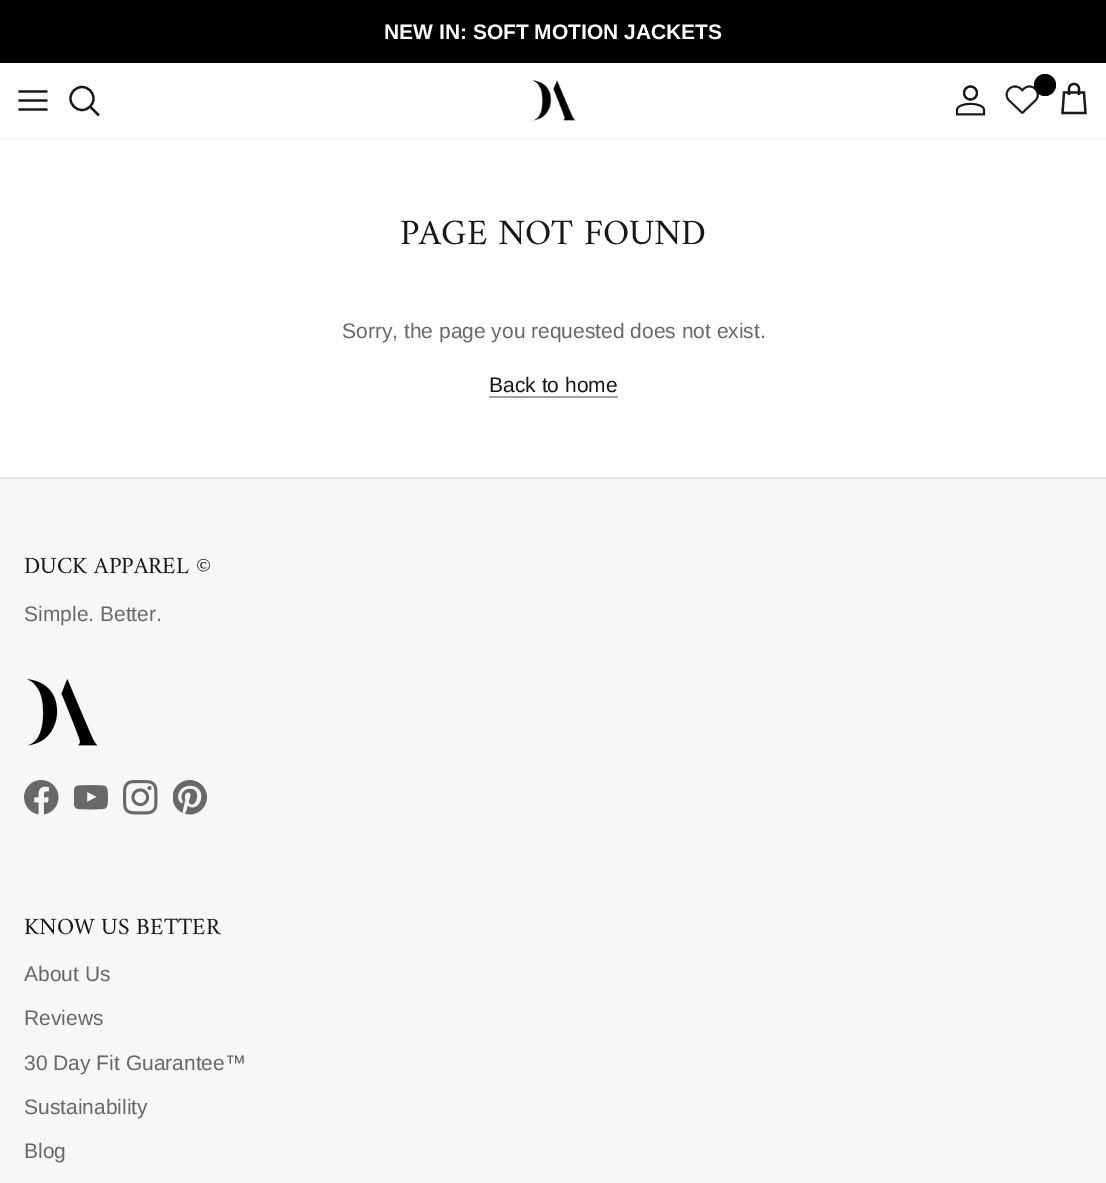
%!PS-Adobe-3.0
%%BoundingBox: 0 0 1106 1183
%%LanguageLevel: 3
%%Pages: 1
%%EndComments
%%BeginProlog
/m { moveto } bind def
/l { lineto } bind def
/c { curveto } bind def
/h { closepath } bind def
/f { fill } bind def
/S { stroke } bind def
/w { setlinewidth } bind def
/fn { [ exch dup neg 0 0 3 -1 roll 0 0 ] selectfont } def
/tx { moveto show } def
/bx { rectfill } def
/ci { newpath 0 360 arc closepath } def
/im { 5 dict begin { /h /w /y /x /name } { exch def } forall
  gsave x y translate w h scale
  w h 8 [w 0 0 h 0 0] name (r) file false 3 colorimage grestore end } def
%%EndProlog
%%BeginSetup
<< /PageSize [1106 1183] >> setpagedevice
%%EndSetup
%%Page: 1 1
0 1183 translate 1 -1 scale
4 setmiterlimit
1 setgray
0 0 1106 1183 bx
0 setgray
0 0 1106 63 bx
/Arimo-Bold 21 fn
1 setgray
(NEW IN: SOFT MOTION JACKETS) 384 39 tx
0.969 0.969 0.973 setrgbcolor
0 138 1106 2 bx
0.09 setgray
2.2 w
1 setlinecap
1 setlinejoin
19.5 100.5 m 46.5 100.5 l 19.5 91.5 m 46.5 91.5 l 19.5 109.5 m 46.5 109.5 l S
0 setlinecap
0 setlinejoin
82 98.5 11.5 ci S
2 setlinecap
91.5 108 m 98 114.5 l S
(image0.raw) 532 80 44 41 im
(image1.raw) 955 85 31 31 im
(image2.raw) 1005 85 34 29 im
0 setgray
1045 85 11 ci f
0.09 setgray
0 setlinecap
1079 95 m 1079 89 l 1079 86 1077 84 1074 84 c 1071 84 1069 86 1069 89 c 1069 95 l 1064 92.5 m 1084 92.5 l 1085.5 113 l 1062.5 113 l h S
/Amiri-Regular 36 fn
(PAGE NOT FOUND) 400 244 tx
/Arimo-Regular 21 fn
0.404 0.408 0.412 setrgbcolor
(Sorry, the page you requested does not exist.) 342 338 tx
0.09 setgray
(Back to home) 489 392 tx
0.635 setgray
489 396 129 2 bx
0.969 0.969 0.973 setrgbcolor
0 479 1106 704 bx
0.894 setgray
0 477 1106 2 bx
/Amiri-Regular 23.5 fn
0.09 setgray
(DUCK APPAREL ©) 24 573 tx
/Arimo-Regular 21 fn
0.404 0.408 0.412 setrgbcolor
(Simple. Better.) 24 621 tx
(image3.raw) 25 678 73 69 im
(image4.raw) 24 780 35 35 im
(image5.raw) 74 785 34 25 im
(image6.raw) 123 780 35 35 im
(image7.raw) 173 780 34 35 im
/Amiri-Regular 23.5 fn
0.09 setgray
(KNOW US BETTER) 24 934 tx
/Arimo-Regular 21 fn
0.404 0.408 0.412 setrgbcolor
(About Us) 24 981 tx
(Reviews) 24 1025 tx
(30 Day Fit Guarantee™) 24 1070 tx
(Sustainability) 24 1114 tx
(Blog) 24 1158 tx
showpage
%%EOF
